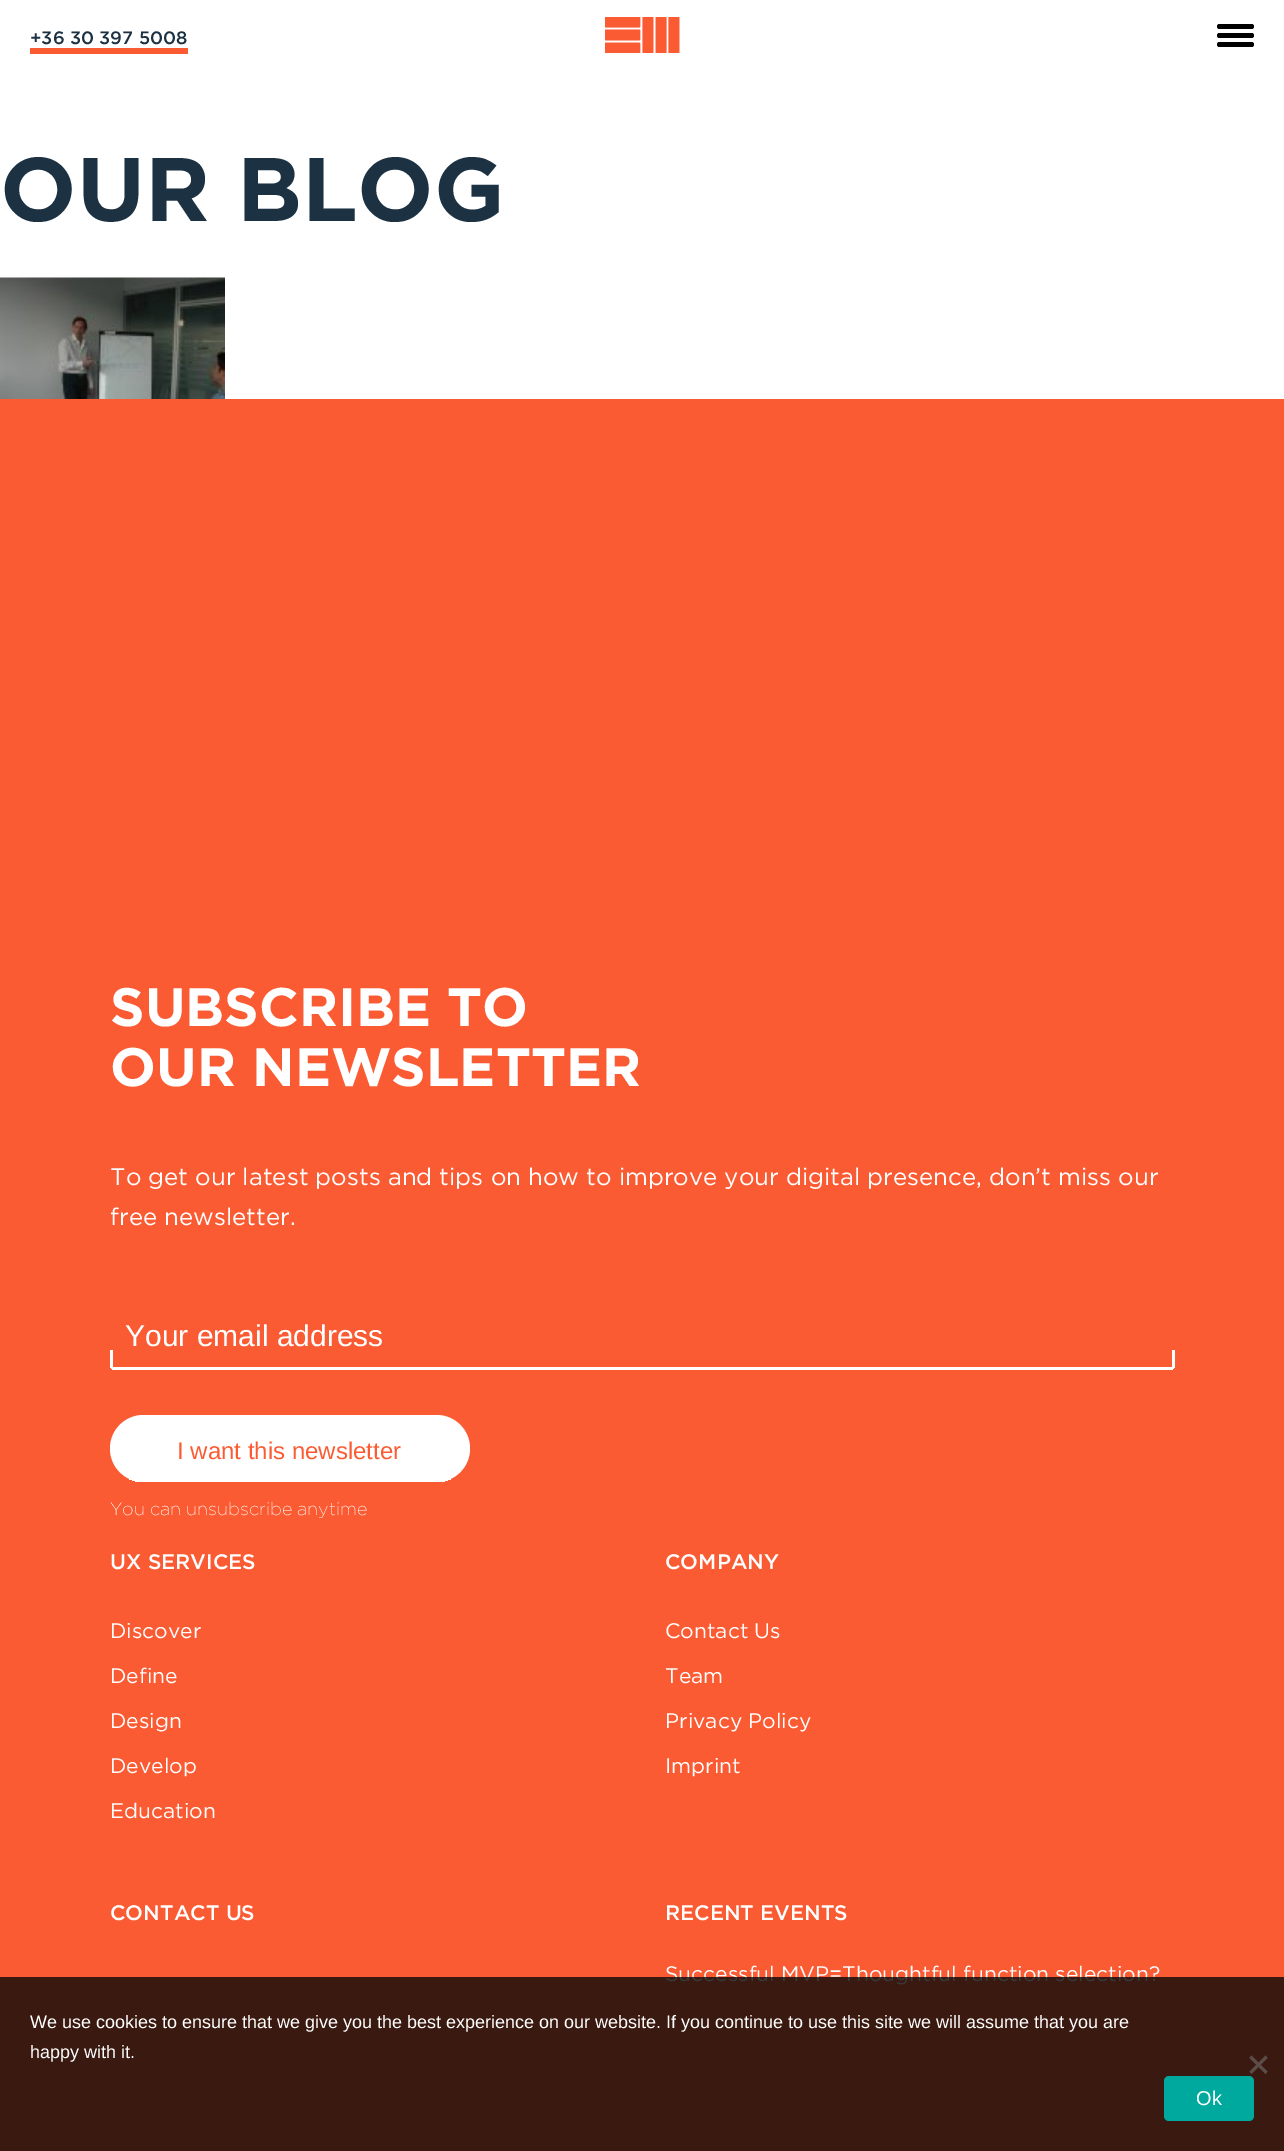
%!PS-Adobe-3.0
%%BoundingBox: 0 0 1284 2151
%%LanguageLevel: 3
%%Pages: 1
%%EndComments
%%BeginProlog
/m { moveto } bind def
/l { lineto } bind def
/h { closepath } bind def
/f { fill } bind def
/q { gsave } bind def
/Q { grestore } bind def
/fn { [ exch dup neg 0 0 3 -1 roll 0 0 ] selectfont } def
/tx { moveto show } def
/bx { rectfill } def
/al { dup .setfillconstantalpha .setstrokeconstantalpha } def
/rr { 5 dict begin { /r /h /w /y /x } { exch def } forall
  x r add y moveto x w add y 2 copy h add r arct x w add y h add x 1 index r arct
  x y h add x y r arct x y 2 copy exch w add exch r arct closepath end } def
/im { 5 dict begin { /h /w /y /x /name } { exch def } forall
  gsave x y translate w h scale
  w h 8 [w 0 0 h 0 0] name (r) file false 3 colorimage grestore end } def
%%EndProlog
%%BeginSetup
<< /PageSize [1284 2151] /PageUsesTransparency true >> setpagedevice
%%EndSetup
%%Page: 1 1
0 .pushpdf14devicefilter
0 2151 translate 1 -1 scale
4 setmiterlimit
1 setgray
0 0 1284 2151 bx
/Gotham-Medium 18 fn
0.11 0.192 0.259 setrgbcolor
(+36 30 397 5008) 30 44 tx
0.984 0.357 0.2 setrgbcolor
30 48 158 6 bx
(image0.raw) 605 17 75 36 im
0 setgray
1217 24 37 5 2.5 rr f
1217 33 37 5 2.5 rr f
1217 42 37 5 2.5 rr f
/Gotham-Bold 90 fn
0.11 0.192 0.259 setrgbcolor
(OUR BLOG) 0 221 tx
(image1.raw) 0 277 225 122 im
0.984 0.357 0.2 setrgbcolor
0 399 1284 1752 bx
/Gotham-Bold 54 fn
1 setgray
(SUBSCRIBE TO) 110 1026 tx
(OUR NEWSLETTER) 110 1086 tx
/Gotham-Regular 24 fn
(To get our latest posts and tips on how to improve your digital presence, don’t miss our) 110 1185 tx
(free newsletter.) 110 1225 tx
q
110 1274 1065 96 5 rr clip newpath
1172 1350 3 20 bx
110 1367 1065 3 bx
110 1350 3 20 bx
Q
/LiberationSans-Regular 30 fn
(Your email address) 125 1346 tx
110 1415 360 67 33.5 rr f
q
110 1415 360 67 33.5 rr clip newpath
129 1479 322 3 bx
Q
/LiberationSans-Regular 24 fn
0.984 0.357 0.2 setrgbcolor
(I want this newsletter) 177 1459 tx
/Gotham-ExtraLight 18 fn
1 setgray
(You can unsubscribe anytime) 110 1515 tx
/Gotham-Medium 21 fn
(UX SERVICES) 110 1569 tx
/Gotham-Regular 21 fn
(Discover) 110 1638 tx
(Define) 110 1683 tx
(Design) 110 1728 tx
(Develop) 110 1773 tx
(Education) 110 1818 tx
/Gotham-Medium 21 fn
(COMPANY) 665 1569 tx
/Gotham-Regular 21 fn
(Contact Us) 665 1638 tx
(Team) 665 1683 tx
(Privacy Policy) 665 1728 tx
(Imprint) 665 1773 tx
/Gotham-Medium 21 fn
(CONTACT US) 110 1920 tx
(RECENT EVENTS) 665 1920 tx
/Gotham-Regular 21 fn
(Successful MVP=Thoughtful function selection?) 665 1981 tx
0.8 al
0.031 0.031 0.027 setrgbcolor
0 1977 1284 174 bx
/LiberationSans-Regular 18 fn
1 al
1 setgray
(We use cookies to ensure that we give you the best experience on our website. If you continue to use this site we will assume that you are) 30 2028 tx
(happy with it.) 30 2058 tx
0.361 0.298 0.282 setrgbcolor
1265.5 2055.5 m 1267.5 2058 l 1251.5 2074 l 1249.5 2071.5 l h f
1249.5 2058 m 1251.5 2055.5 l 1267.5 2071.5 l 1265.5 2074 l h f
0 0.663 0.616 setrgbcolor
1164 2076 90 45 5 rr f
/LiberationSans-Regular 20 fn
1 setgray
(Ok) 1196 2105 tx
.poppdf14devicefilter showpage
%%EOF
